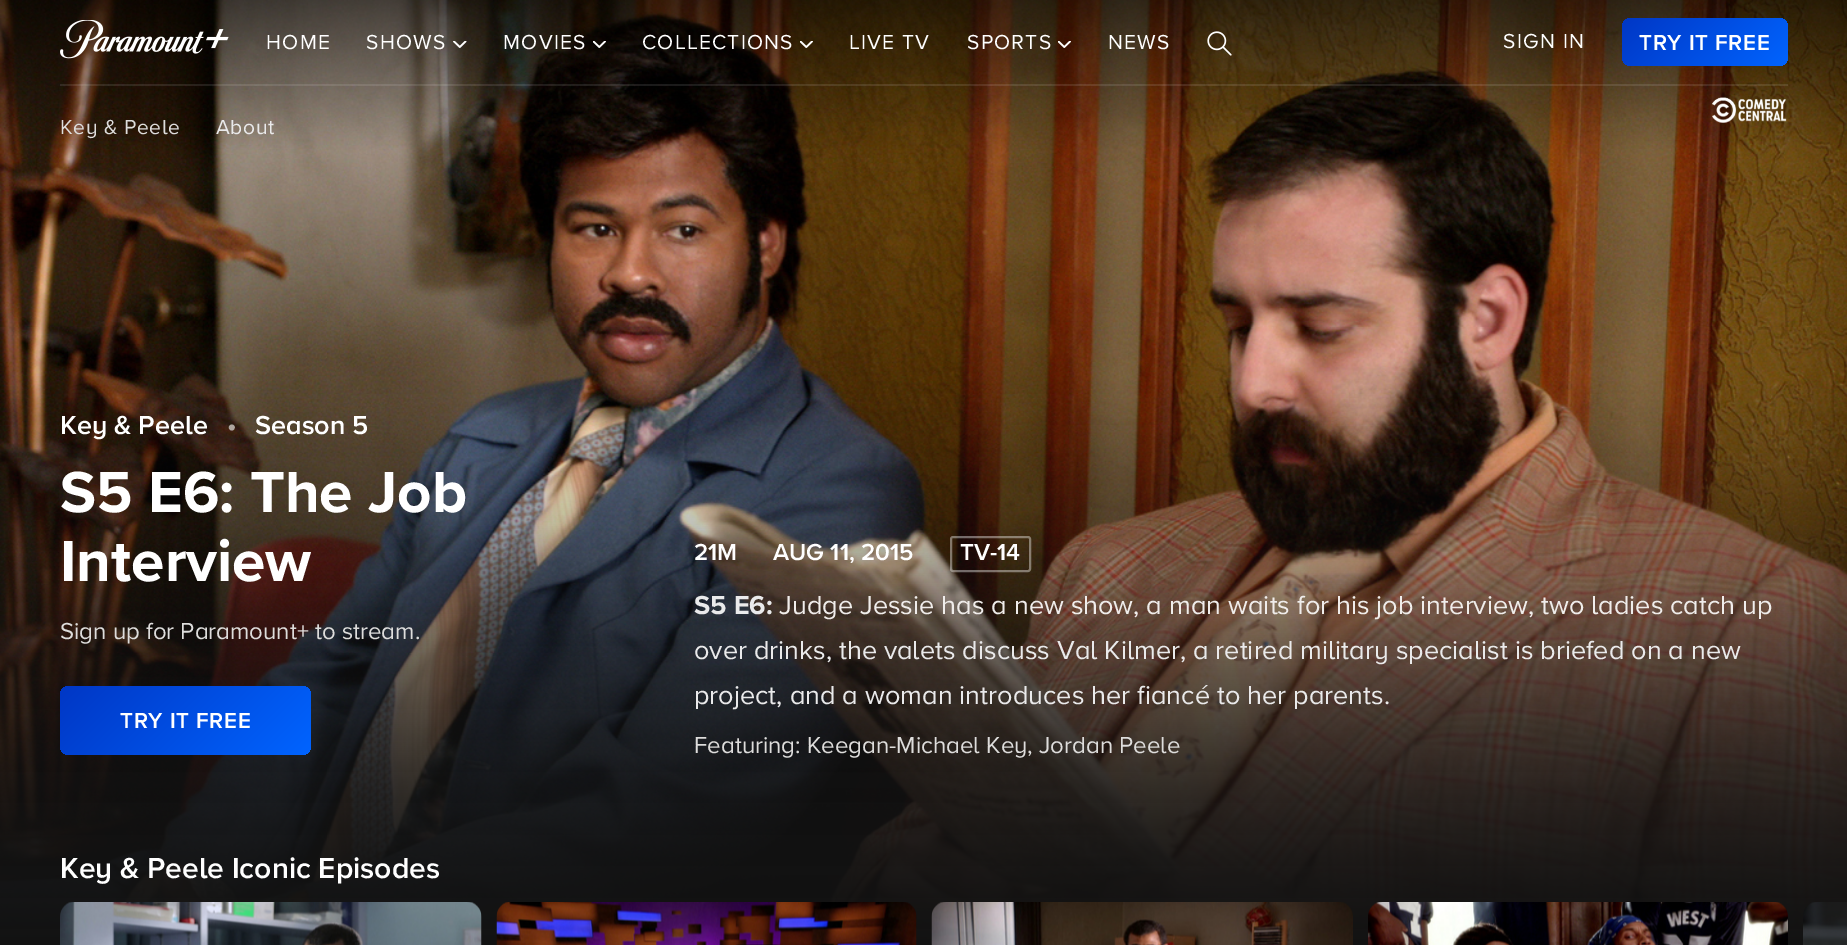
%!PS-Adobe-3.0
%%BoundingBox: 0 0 1847 945
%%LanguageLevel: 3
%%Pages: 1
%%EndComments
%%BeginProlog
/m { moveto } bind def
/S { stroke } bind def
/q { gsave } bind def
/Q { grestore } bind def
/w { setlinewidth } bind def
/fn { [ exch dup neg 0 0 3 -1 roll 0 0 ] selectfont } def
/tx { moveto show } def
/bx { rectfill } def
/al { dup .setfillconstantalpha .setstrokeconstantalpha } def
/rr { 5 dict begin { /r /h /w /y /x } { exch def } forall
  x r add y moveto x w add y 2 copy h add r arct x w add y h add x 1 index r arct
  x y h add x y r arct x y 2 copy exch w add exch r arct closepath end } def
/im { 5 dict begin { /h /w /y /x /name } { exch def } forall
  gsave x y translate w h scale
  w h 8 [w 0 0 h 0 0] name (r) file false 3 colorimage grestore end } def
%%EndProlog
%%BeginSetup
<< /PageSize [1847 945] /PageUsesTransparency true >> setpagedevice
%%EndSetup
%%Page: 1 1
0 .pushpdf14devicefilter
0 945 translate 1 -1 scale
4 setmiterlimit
1 setgray
0 0 1847 945 bx
(image6.raw) 0 0 1847 945 im
(image0.raw) 60 20 169 39 im
/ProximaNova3-Regular 21 fn
266 49 m 1.25 0 (HOME) ashow
366 49 m 1.25 0 (SHOWS) ashow
(image1.raw) 453 41 14 7 im
503 49 m 1.25 0 (MOVIES) ashow
(image2.raw) 593 41 13 7 im
642 49 m 1.25 0 (COLLECTIONS) ashow
(image3.raw) 800 41 13 7 im
849 49 m 1.25 0 (LIVE TV) ashow
967 49 m 1.25 0 (SPORTS) ashow
(image4.raw) 1058 41 13 7 im
1108 49 m 1.25 0 (NEWS) ashow
(image5.raw) 1207 31 25 25 im
1503 48 m 1.25 0 (SIGN IN) ashow
q 1622 18 166 48 9 rr clip newpath
<< /ShadingType 2 /ColorSpace /DeviceRGB /Coords [1651 -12 1758 96] /Extend [true true] /Function << /FunctionType 2 /Domain [0 1] /C0 [0 0.216 0.773] /C1 [0 0.392 1] /N 1 >> >> shfill Q
/ProximaNova-Regular 22.5 fn
1639 50 m 0.6 0 (TRY IT FREE) ashow
0.1 al
60 84 1728 2 bx
/ProximaNova3-Regular 21 fn
1 al
0.871 0.867 0.863 setrgbcolor
60 134 m 0.6 0 (Key & Peele) ashow
0.918 0.918 0.922 setrgbcolor
216 134 m 0.6 0 (About) ashow
(image7.raw) 1712 97 75 26 im
/ProximaNova-Regular 27 fn
1 setgray
(Key & Peele) 60 434 tx
0.682 0.651 0.627 setrgbcolor
(•) 227 434 tx
1 setgray
(Season 5) 255 434 tx
/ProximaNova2-Regular 60 fn
(S5 E6: The Job) 60 512 tx
(Interview) 60 581 tx
/ProximaNova3-Regular 24 fn
0.871 0.867 0.863 setrgbcolor
(Sign up for Paramount+ to stream.) 60 639 tx
q 60 686 251 69 9 rr clip newpath
<< /ShadingType 2 /ColorSpace /DeviceRGB /Coords [105 640 265 800] /Extend [true true] /Function << /FunctionType 2 /Domain [0 1] /C0 [0 0.216 0.773] /C1 [0 0.392 1] /N 1 >> >> shfill Q
/ProximaNova-Regular 22.5 fn
1 setgray
120 728 m 0.6 0 (TRY IT FREE) ashow
/ProximaNova-Regular 24 fn
(21M) 694 560 tx
(AUG 11, 2015) 773 560 tx
0.4 al
2 w
951 537 79 34 2 rr S
1 al
(TV-14) 960 560 tx
/ProximaNova2-Regular 27 fn
0.918 0.918 0.922 setrgbcolor
(S5 E6:) 694 614 tx
/ProximaNova3-Regular 27 fn
0.941 0.929 0.922 setrgbcolor
(Judge Jessie has a new show, a man waits for his job interview, two ladies catch up) 779 614 tx
0.918 0.918 0.922 setrgbcolor
(over drinks, the valets discuss Val Kilmer, a retired military specialist is briefed on a new) 694 659 tx
(project, and a woman introduces her fiancé to her parents.) 694 704 tx
/ProximaNova3-Regular 24 fn
0.871 0.867 0.863 setrgbcolor
(Featuring: Keegan-Michael Key, Jordan Peele) 694 753 tx
/ProximaNova-Regular 30 fn
1 setgray
(Key & Peele Iconic Episodes) 60 878 tx
(image8.raw) 60 902 422 43 im
(image9.raw) 496 902 421 43 im
(image10.raw) 931 902 422 43 im
(image11.raw) 1368 902 420 43 im
(image12.raw) 1803 902 44 43 im
.poppdf14devicefilter showpage
%%EOF
